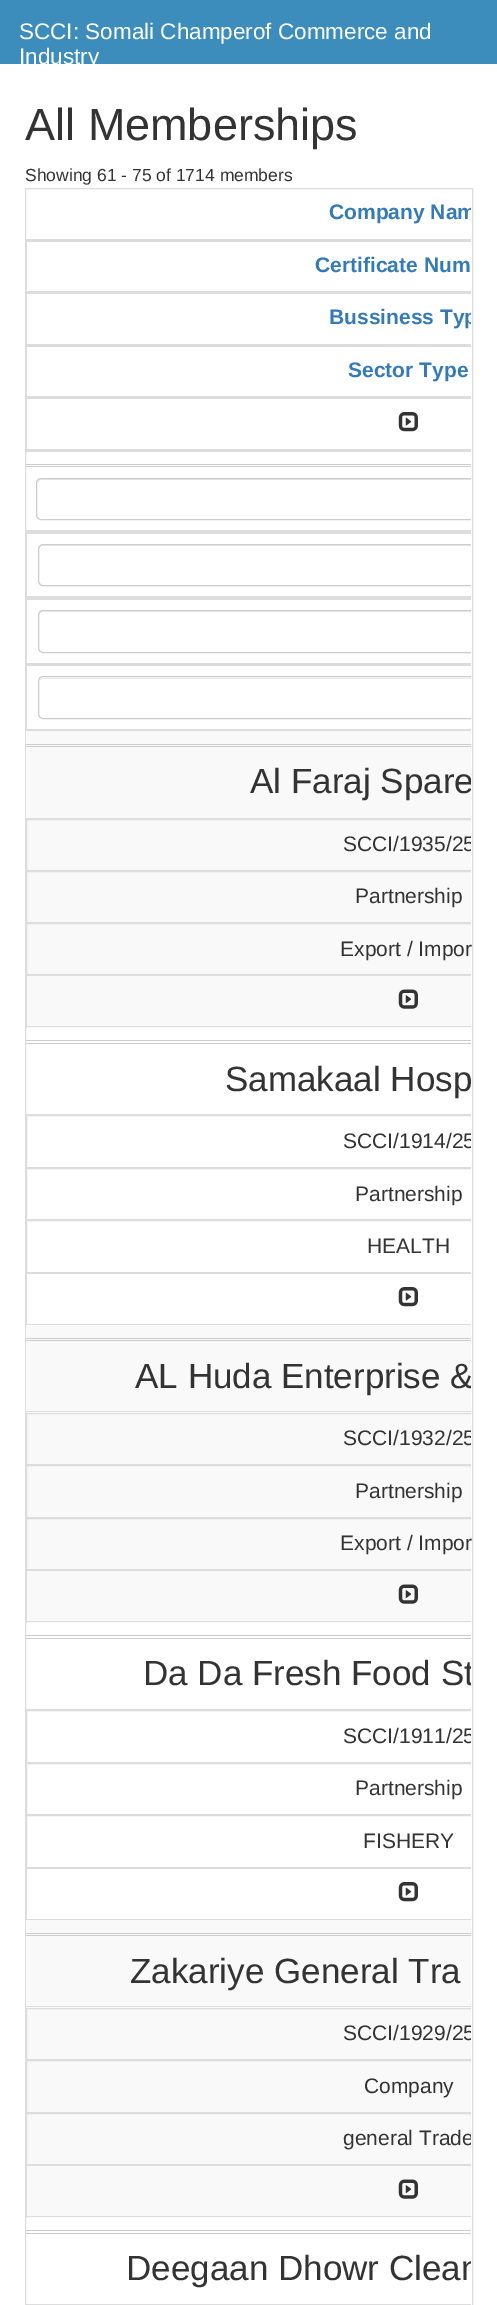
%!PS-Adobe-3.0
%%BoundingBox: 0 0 497 2305
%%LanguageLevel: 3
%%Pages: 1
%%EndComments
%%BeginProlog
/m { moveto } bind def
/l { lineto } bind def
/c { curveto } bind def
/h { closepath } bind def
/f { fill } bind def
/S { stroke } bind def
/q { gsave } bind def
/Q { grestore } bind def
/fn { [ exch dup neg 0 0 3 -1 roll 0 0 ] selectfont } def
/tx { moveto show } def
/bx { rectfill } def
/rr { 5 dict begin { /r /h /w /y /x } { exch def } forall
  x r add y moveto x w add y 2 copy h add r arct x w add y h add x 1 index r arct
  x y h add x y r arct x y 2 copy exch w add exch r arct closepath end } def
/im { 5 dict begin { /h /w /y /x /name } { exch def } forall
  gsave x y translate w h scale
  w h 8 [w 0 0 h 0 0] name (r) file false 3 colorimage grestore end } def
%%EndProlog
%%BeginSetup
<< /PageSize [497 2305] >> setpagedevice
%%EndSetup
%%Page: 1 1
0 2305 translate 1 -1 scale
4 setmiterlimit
1 setgray
0 0 497 2305 bx
0.235 0.553 0.737 setrgbcolor
0 0 497 64 bx
/LiberationSans-Regular 22.5 fn
1 setgray
(SCCI: Somali Champerof Commerce and) 19 39 tx
(Industry) 19 64 tx
/LiberationSans-Regular 45 fn
0.2 setgray
(All Memberships) 25 140 tx
/LiberationSans-Regular 17.5 fn
(Showing 61 - 75 of 1714 members) 25 181 tx
0.867 setgray
25.5 188.5 447 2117 rectstroke
26 239 445 3 bx
q
26 189 445 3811 rectclip
/LiberationSans-Bold 21 fn
0.2 0.478 0.718 setrgbcolor
(Company Nam) 329 219 tx
Q
26 291 445 3 bx
26 241 1 53 bx
/LiberationSans-Bold 21 fn
0.2 0.478 0.718 setrgbcolor
(Certificate Num) 315 272 tx
0.867 setgray
26 344 445 3 bx
26 294 1 52 bx
q
26 189 445 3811 rectclip
0.2 0.478 0.718 setrgbcolor
(Bussiness Typ) 329 324 tx
Q
26 396 445 3 bx
26 346 1 53 bx
0.2 0.478 0.718 setrgbcolor
(Sector Type) 348 377 tx
0.867 setgray
26 449 445 3 bx
26 399 1 52 bx
(image0.raw) 398 412 20 20 im
0.8 setgray
26 464 445 1 bx
26 466 445 1 bx
0.867 setgray
26 530 445 4 bx
q
26 189 445 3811 rectclip
0.925 setgray
41 480 m 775 480 l 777 480 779 482 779 484 c 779 481 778 479 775 479 c 42 479 l 39 480 l 38 481 l 38 484 l 38 482 39 480 41 480 c h f
0.8 setgray
36.5 478.5 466 41 4.5 rr S
Q
26 596 445 4 bx
26 533 1 66 bx
q
26 189 445 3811 rectclip
0.925 setgray
42 546 m 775 546 l 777 546 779 548 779 550 c 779 547 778 545 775 545 c 43 545 l 40 546 l 39 547 l 39 550 l 39 548 40 546 42 546 c h f
0.8 setgray
38.5 544.5 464 41 4.5 rr S
Q
26 663 445 3 bx
26 599 1 66 bx
q
26 189 445 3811 rectclip
0.925 setgray
42 612 m 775 612 l 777 612 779 614 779 616 c 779 613 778 611 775 611 c 43 611 l 40 612 l 39 613 l 39 616 l 39 614 40 612 42 612 c h f
0.8 setgray
38.5 610.5 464 42 4.5 rr S
Q
26 729 445 2 bx
26 665 1 66 bx
q
26 189 445 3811 rectclip
0.925 setgray
42 679 m 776 679 l 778 679 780 680 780 682 c 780 680 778 678 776 678 c 43 678 l 42 678 40 679 40 680 c h f
0.8 setgray
38.5 676.5 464 42 4.5 rr S
Q
0.976 setgray
26 731 445 297 bx
0.8 setgray
26 744 445 1 bx
26 746 445 1 bx
0.867 setgray
26 818 445 1 bx
q
26 189 445 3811 rectclip
/LiberationSans-Regular 35 fn
0.2 setgray
(Al Faraj Spare) 250 793 tx
0.867 setgray
26.5 819.5 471 51 rectstroke
/LiberationSans-Regular 21 fn
0.2 setgray
(SCCI/1935/25) 343 851 tx
0.867 setgray
26.5 871.5 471 51 rectstroke
Q
/LiberationSans-Regular 21 fn
0.2 setgray
(Partnership) 355 903 tx
q
26 189 445 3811 rectclip
0.867 setgray
26.5 923.5 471 51 rectstroke
Q
(Export / Impor) 340 956 tx
0.867 setgray
26 975 445 1 bx
26 1026 445 1 bx
26 975 1 53 bx
(image1.raw) 398 989 20 20 im
0.8 setgray
26 1040 445 1 bx
26 1043 445 1 bx
0.867 setgray
26 1114 445 1 bx
/LiberationSans-Regular 35 fn
0.2 setgray
(Samakaal Hosp) 225 1091 tx
q
26 189 445 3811 rectclip
0.867 setgray
26.5 1115.5 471 52 rectstroke
/LiberationSans-Regular 21 fn
0.2 setgray
(SCCI/1914/25) 343 1148 tx
0.867 setgray
26.5 1168.5 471 51 rectstroke
Q
/LiberationSans-Regular 21 fn
(Partnership) 355 1201 tx
q
26 189 445 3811 rectclip
0.867 setgray
26.5 1220.5 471 52 rectstroke
Q
(HEALTH) 367 1253 tx
0.867 setgray
26 1273 445 1 bx
26 1324 445 1 bx
26 1273 1 52 bx
(image0.raw) 398 1287 20 20 im
0.976 setgray
26 1325 445 298 bx
0.8 setgray
26 1338 445 1 bx
26 1340 445 1 bx
0.867 setgray
26 1411 445 1 bx
q
26 189 445 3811 rectclip
/LiberationSans-Regular 35 fn
0.2 setgray
(AL Huda Enterprise &) 135 1388 tx
0.867 setgray
26.5 1413.5 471 51 rectstroke
/LiberationSans-Regular 21 fn
0.2 setgray
(SCCI/1932/25) 343 1445 tx
0.867 setgray
26.5 1465.5 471 52 rectstroke
Q
0.2 setgray
(Partnership) 355 1498 tx
q
26 189 445 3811 rectclip
0.867 setgray
26.5 1518.5 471 51 rectstroke
Q
(Export / Impor) 340 1550 tx
0.867 setgray
26 1570 445 1 bx
26 1621 445 1 bx
26 1570 1 53 bx
(image1.raw) 398 1584 20 20 im
0.8 setgray
26 1635 445 1 bx
26 1638 445 1 bx
0.867 setgray
26 1709 445 1 bx
q
26 189 445 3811 rectclip
/LiberationSans-Regular 35 fn
0.2 setgray
(Da Da Fresh Food St) 143 1685 tx
0.867 setgray
26.5 1710.5 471 52 rectstroke
/LiberationSans-Regular 21 fn
0.2 setgray
(SCCI/1911/25) 343 1743 tx
0.867 setgray
26.5 1763.5 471 51 rectstroke
Q
0.2 setgray
(Partnership) 355 1795 tx
q
26 189 445 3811 rectclip
0.867 setgray
26.5 1815.5 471 52 rectstroke
Q
(FISHERY) 363 1848 tx
0.867 setgray
26 1868 445 1 bx
26 1919 445 1 bx
26 1868 1 52 bx
(image0.raw) 398 1882 20 20 im
0.976 setgray
26 1920 445 298 bx
0.8 setgray
26 1933 445 1 bx
26 1935 445 1 bx
0.867 setgray
26 2006 445 1 bx
/LiberationSans-Regular 35 fn
0.2 setgray
(Zakariye General Tra) 130 1983 tx
q
26 189 445 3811 rectclip
0.867 setgray
26.5 2008.5 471 51 rectstroke
/LiberationSans-Regular 21 fn
0.2 setgray
(SCCI/1929/25) 343 2040 tx
0.867 setgray
26.5 2060.5 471 52 rectstroke
Q
/LiberationSans-Regular 21 fn
(Company) 364 2093 tx
q
26 189 445 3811 rectclip
0.867 setgray
26.5 2113.5 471 51 rectstroke
0.2 setgray
(general Trade) 343 2145 tx
Q
0.867 setgray
26 2165 445 1 bx
26 2216 445 1 bx
26 2165 1 53 bx
(image1.raw) 398 2179 20 20 im
0.8 setgray
26 2230 445 1 bx
26 2233 445 1 bx
0.867 setgray
26 2304 445 1 bx
q
26 189 445 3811 rectclip
/LiberationSans-Regular 35 fn
0.2 setgray
(Deegaan Dhowr Clean) 126 2280 tx
Q
showpage
%%EOF
